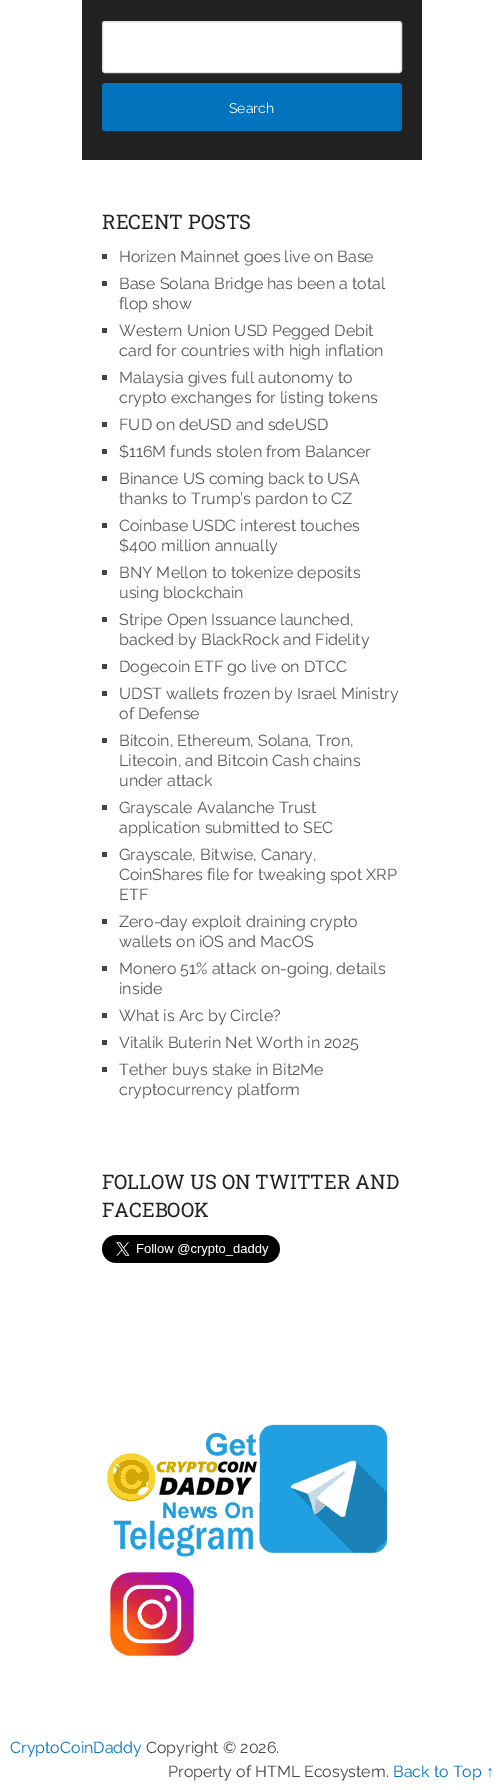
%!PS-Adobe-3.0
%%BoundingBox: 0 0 504 1790
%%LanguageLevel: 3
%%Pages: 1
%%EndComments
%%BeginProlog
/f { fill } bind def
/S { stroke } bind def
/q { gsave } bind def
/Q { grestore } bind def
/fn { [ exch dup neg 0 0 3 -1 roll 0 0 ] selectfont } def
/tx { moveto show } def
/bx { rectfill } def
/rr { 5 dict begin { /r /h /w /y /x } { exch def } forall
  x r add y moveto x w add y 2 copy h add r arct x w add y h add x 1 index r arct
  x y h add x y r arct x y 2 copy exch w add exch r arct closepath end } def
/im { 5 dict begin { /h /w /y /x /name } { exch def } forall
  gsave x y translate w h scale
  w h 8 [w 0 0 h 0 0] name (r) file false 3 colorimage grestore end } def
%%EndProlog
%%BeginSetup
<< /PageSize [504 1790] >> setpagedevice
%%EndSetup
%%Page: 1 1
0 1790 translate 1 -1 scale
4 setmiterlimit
1 setgray
0 0 504 1790 bx
0.133 setgray
82 0 340 160 bx
1 setgray
102.5 21.5 299 51 2.5 rr q f Q
0.867 setgray
S
0.008 0.455 0.745 setrgbcolor
102 83 300 48 3 rr f
/Raleway-Regular 14 fn
1 setgray
(Search) 229 113 tx
/RobotoSlab-Regular 20 fn
0.133 setgray
(RECENT POSTS) 102 229 tx
0.267 setgray
102 254 5 5 bx
/Raleway-Regular 16 fn
0.333 setgray
(Horizen Mainnet goes live on Base) 119 262 tx
0.267 setgray
102 281 5 5 bx
0.333 setgray
(Base Solana Bridge has been a total) 119 289 tx
(flop show) 119 309 tx
0.267 setgray
102 328 5 5 bx
0.333 setgray
(Western Union USD Pegged Debit) 119 336 tx
(card for countries with high inflation) 119 356 tx
0.267 setgray
102 375 5 5 bx
0.333 setgray
(Malaysia gives full autonomy to) 119 383 tx
(crypto exchanges for listing tokens) 119 403 tx
0.267 setgray
102 422 5 5 bx
0.333 setgray
(FUD on deUSD and sdeUSD) 119 430 tx
0.267 setgray
102 449 5 5 bx
0.333 setgray
($116M funds stolen from Balancer) 119 457 tx
0.267 setgray
102 476 5 5 bx
0.333 setgray
(Binance US coming back to USA) 119 484 tx
(thanks to Trump’s pardon to CZ) 119 504 tx
0.267 setgray
102 523 5 5 bx
0.333 setgray
(Coinbase USDC interest touches) 119 531 tx
($400 million annually) 119 551 tx
0.267 setgray
102 570 5 5 bx
0.333 setgray
(BNY Mellon to tokenize deposits) 119 578 tx
(using blockchain) 119 598 tx
0.267 setgray
102 617 5 5 bx
0.333 setgray
(Stripe Open Issuance launched,) 119 625 tx
(backed by BlackRock and Fidelity) 119 645 tx
0.267 setgray
102 664 5 5 bx
0.333 setgray
(Dogecoin ETF go live on DTCC) 119 672 tx
0.267 setgray
102 691 5 5 bx
0.333 setgray
(UDST wallets frozen by Israel Ministry) 119 699 tx
(of Defense) 119 719 tx
0.267 setgray
102 738 5 5 bx
0.333 setgray
(Bitcoin, Ethereum, Solana, Tron,) 119 746 tx
(Litecoin, and Bitcoin Cash chains) 119 766 tx
(under attack) 119 786 tx
0.267 setgray
102 805 5 5 bx
0.333 setgray
(Grayscale Avalanche Trust) 119 813 tx
(application submitted to SEC) 119 833 tx
0.267 setgray
102 852 5 5 bx
0.333 setgray
(Grayscale, Bitwise, Canary,) 119 860 tx
(CoinShares file for tweaking spot XRP) 119 880 tx
(ETF) 119 900 tx
0.267 setgray
102 919 5 5 bx
0.333 setgray
(Zero-day exploit draining crypto) 119 927 tx
(wallets on iOS and MacOS) 119 947 tx
0.267 setgray
102 966 5 5 bx
0.333 setgray
(Monero 51% attack on-going, details) 119 974 tx
(inside) 119 994 tx
0.267 setgray
102 1013 5 5 bx
0.333 setgray
(What is Arc by Circle?) 119 1021 tx
0.267 setgray
102 1040 5 5 bx
0.333 setgray
(Vitalik Buterin Net Worth in 2025) 119 1048 tx
0.267 setgray
102 1067 5 5 bx
0.333 setgray
(Tether buys stake in Bit2Me) 119 1075 tx
(cryptocurrency platform) 119 1095 tx
/RobotoSlab-Regular 20 fn
0.133 setgray
(FOLLOW US ON TWITTER AND) 102 1189 tx
(FACEBOOK) 102 1217 tx
(image0.raw) 102 1235 178 28 im
(image1.raw) 107 1424 281 133 im
(image2.raw) 110 1572 84 84 im
/Raleway-Regular 16 fn
0.008 0.455 0.745 setrgbcolor
(CryptoCoinDaddy) 10 1753 tx
0.267 setgray
(Copyright © 2026.) 146 1753 tx
(Property of HTML Ecosystem.) 168 1777 tx
0.008 0.455 0.745 setrgbcolor
(Back to Top) 393 1777 tx
/LiberationSerif-Regular 16 fn
(↑) 486 1777 tx
showpage
%%EOF
